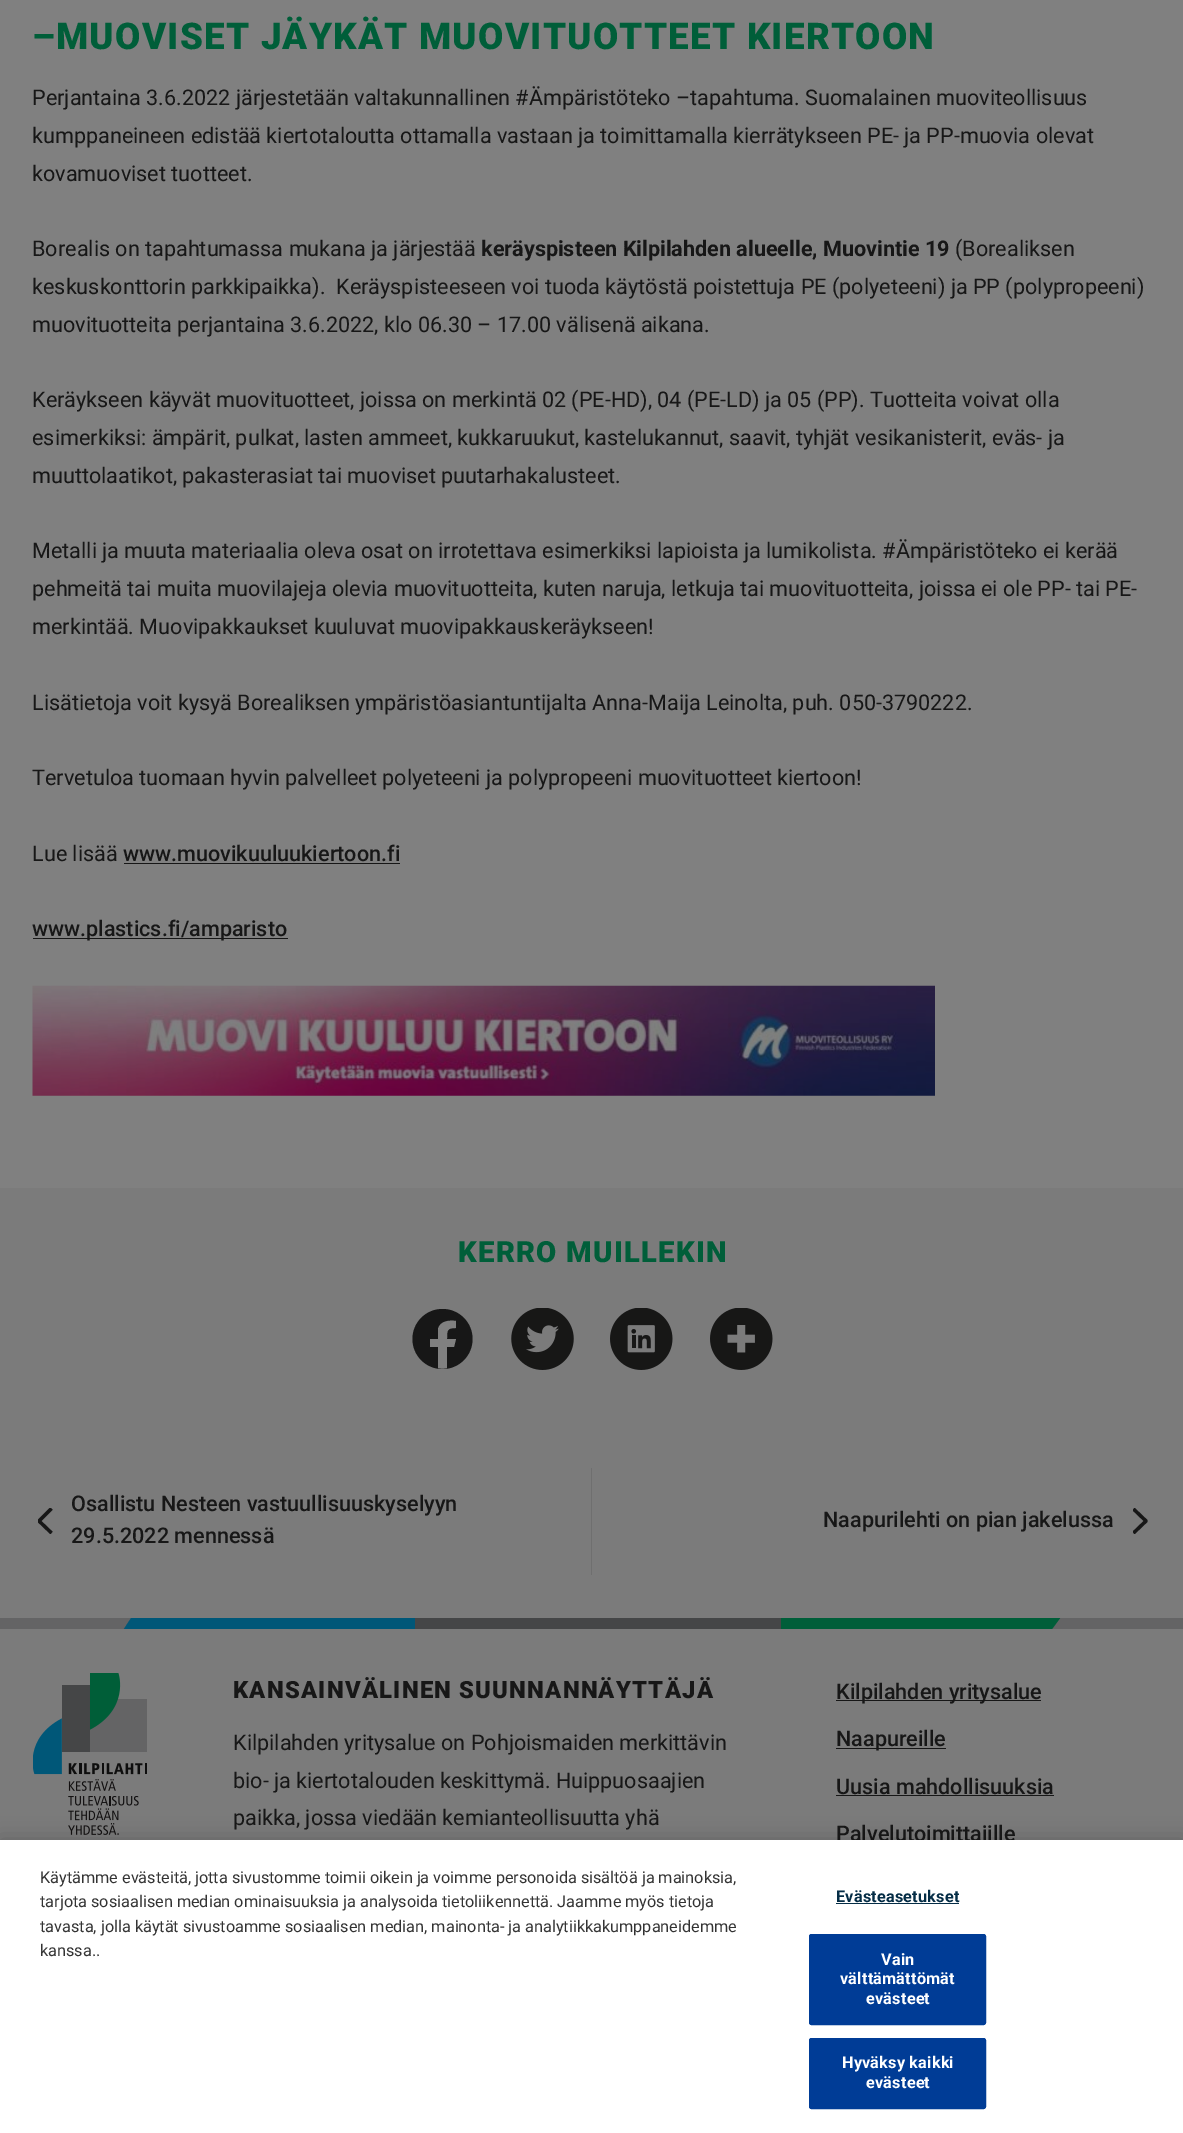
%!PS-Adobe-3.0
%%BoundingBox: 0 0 1183 2133
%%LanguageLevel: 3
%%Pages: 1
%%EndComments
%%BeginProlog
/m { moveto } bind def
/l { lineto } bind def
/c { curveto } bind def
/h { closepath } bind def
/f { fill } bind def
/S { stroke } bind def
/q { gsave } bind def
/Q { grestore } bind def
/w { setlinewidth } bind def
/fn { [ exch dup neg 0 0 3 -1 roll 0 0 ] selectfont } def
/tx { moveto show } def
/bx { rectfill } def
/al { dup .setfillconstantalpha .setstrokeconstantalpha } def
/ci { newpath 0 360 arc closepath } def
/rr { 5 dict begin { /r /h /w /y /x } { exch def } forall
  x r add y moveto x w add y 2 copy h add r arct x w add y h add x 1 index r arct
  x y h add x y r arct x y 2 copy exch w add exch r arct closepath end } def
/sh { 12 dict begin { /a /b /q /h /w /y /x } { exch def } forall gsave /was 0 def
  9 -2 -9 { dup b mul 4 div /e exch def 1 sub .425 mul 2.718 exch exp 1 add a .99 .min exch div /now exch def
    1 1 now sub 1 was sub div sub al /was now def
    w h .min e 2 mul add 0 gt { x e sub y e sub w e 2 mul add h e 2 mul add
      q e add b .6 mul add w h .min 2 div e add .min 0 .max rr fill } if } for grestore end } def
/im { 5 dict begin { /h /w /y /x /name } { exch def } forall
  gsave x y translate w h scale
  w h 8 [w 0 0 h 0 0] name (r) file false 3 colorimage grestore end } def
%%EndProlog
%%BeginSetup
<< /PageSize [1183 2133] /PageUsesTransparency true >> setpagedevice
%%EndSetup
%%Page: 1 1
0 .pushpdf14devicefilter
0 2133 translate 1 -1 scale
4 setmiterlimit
0.502 setgray
0 0 1183 2133 bx
/Roboto-Black 36.75 fn
0 0.369 0.224 setrgbcolor
32 49 m 1.25 0 (–MUOVISET JÄYKÄT MUOVITUOTTEET KIERTOON) ashow
/Roboto-Regular 21.6 fn
0.09 setgray
(Perjantaina 3.6.2022 järjestetään valtakunnallinen #Ämpäristöteko –tapahtuma. Suomalainen muoviteollisuus) 32 105 tx
(kumppaneineen edistää kiertotaloutta ottamalla vastaan ja toimittamalla kierrätykseen PE- ja PP-muovia olevat) 32 143 tx
(kovamuoviset tuotteet.) 32 181 tx
(Borealis on tapahtumassa mukana ja järjestää) 32 256 tx
/Roboto-Bold 21.6 fn
(keräyspisteen Kilpilahden alueelle, Muovintie 19) 481 256 tx
/Roboto-Regular 21.6 fn
(\(Borealiksen) 955 256 tx
(keskuskonttorin parkkipaikka\).  Keräyspisteeseen voi tuoda käytöstä poistettuja PE \(polyeteeni\) ja PP \(polypropeeni\)) 32 294 tx
(muovituotteita perjantaina 3.6.2022, klo 06.30 – 17.00 välisenä aikana.) 32 332 tx
(Keräykseen käyvät muovituotteet, joissa on merkintä 02 \(PE-HD\), 04 \(PE-LD\) ja 05 \(PP\). Tuotteita voivat olla) 32 407 tx
(esimerkiksi: ämpärit, pulkat, lasten ammeet, kukkaruukut, kastelukannut, saavit, tyhjät vesikanisterit, eväs- ja) 32 445 tx
(muuttolaatikot, pakasterasiat tai muoviset puutarhakalusteet.) 32 483 tx
(Metalli ja muuta materiaalia oleva osat on irrotettava esimerkiksi lapioista ja lumikolista. #Ämpäristöteko ei kerää) 32 558 tx
(pehmeitä tai muita muovilajeja olevia muovituotteita, kuten naruja, letkuja tai muovituotteita, joissa ei ole PP- tai PE-) 32 596 tx
(merkintää. Muovipakkaukset kuuluvat muovipakkauskeräykseen!) 32 634 tx
(Lisätietoja voit kysyä Borealiksen ympäristöasiantuntijalta Anna-Maija Leinolta, puh. 050-3790222.) 32 710 tx
(Tervetuloa tuomaan hyvin palvelleet polyeteeni ja polypropeeni muovituotteet kiertoon!) 32 785 tx
(Lue lisää) 32 861 tx
/Roboto-Medium 21.6 fn
(www.muovikuuluukiertoon.fi) 123 861 tx
124 863 276 1 bx
33 938 255 1 bx
(www.plastics.fi/amparisto) 32 936 tx
(image0.raw) 32 985 903 111 im
0.482 setgray
0 1188 1183 430 bx
/Roboto-Black 29.25 fn
0 0.369 0.224 setrgbcolor
458 1262 m 1.25 0 (KERRO MUILLEKIN) ashow
0.09 setgray
442.5 1339 30 ci f
0.502 setgray
454 1347 m 456 1339 l 447 1339 l 447 1330 447 1328 456 1328 c 456 1321 l 449 1320 440 1321 438 1329 c 438 1339 l 430 1339 l 430 1347 l 438 1347 l 438 1368 l 441 1369 444 1369 447 1368 c 447 1347 l h f
(image1.raw) 511 1308 63 62 im
(image2.raw) 610 1308 63 62 im
(image3.raw) 710 1308 63 62 im
0.435 setgray
591 1468 1 107 bx
q
38 1508 15 26 rectclip
0.09 setgray
3.3 w
1 setlinejoin
51.5 1533 m 39 1521 l 51.5 1508.5 l S
Q
/Roboto-Medium 21.6 fn
0.09 setgray
(Osallistu Nesteen vastuullisuuskyselyyn) 71 1511 tx
(29.5.2022 mennessä) 71 1543 tx
q
1133 1508 15 26 rectclip
3.3 w
1 setlinejoin
1133.5 1533 m 1146 1521 l 1133.5 1509 l S
Q
(Naapurilehti on pian jakelussa) 823 1527 tx
0.482 setgray
0 1629 1183 211 bx
0.392 0.392 0.396 setrgbcolor
0 1618 1183 11 bx
0.271 0.275 0.278 setrgbcolor
415 1618 366 11 bx
q
0 1618 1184 11 rectclip
0 0.341 0.471 setrgbcolor
415 2102 m 56 2102 l 41 2069 -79 1634 415 1376 c h f
0 0.369 0.224 setrgbcolor
781 1103 m 1149 1103 l 1165 1138 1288 1584 781 1849 c h f
Q
(image4.raw) 33 1673 114 162 im
/Roboto-Black 23.75 fn
0.09 setgray
233 1698 m 1.25 0 (KANSAINVÄLINEN SUUNNANNÄYTTÄJÄ) ashow
/Roboto-Regular 21.6 fn
(Kilpilahden yritysalue on Pohjoismaiden merkittävin) 233 1750 tx
(bio- ja kiertotalouden keskittymä. Huippuosaajien) 233 1788 tx
(paikka, jossa viedään kemianteollisuutta yhä) 233 1825 tx
836 1700 205 1 bx
/Roboto-Medium 21.6 fn
(Kilpilahden yritysalue) 836 1699 tx
836 1748 110 1 bx
(Naapureille) 836 1746 tx
(Uusia mahdollisuuksia) 836 1794 tx
836 1795 218 1 bx
(Palvelutoimittajille) 836 1841 tx
0 setgray
0 1840 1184 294 0 11 0.2 sh
1 setgray
0 1840 1183 293 bx
/Roboto-Regular 16.25 fn
0.2 setgray
(Käytämme evästeitä, jotta sivustomme toimii oikein ja voimme personoida sisältöä ja mainoksia,) 40 1883 tx
(tarjota sosiaalisen median ominaisuuksia ja analysoida tietoliikennettä. Jaamme myös tietoja) 40 1907 tx
(tavasta, jolla käytät sivustoamme sosiaalisen median, mainonta- ja analytiikkakumppaneidemme) 40 1932 tx
(kanssa..) 40 1956 tx
/Roboto-Bold 16.25 fn
0.02 0.176 0.275 setrgbcolor
836 1902 m 0.2 0 (Evästeasetukset) ashow
836 1903 123 1 bx
0 0.235 0.588 setrgbcolor
809.5 1934.5 176 90 2 rr q f Q
S
1 setgray
881 1965 m 0.2 0 (Vain) ashow
840 1984 m 0.2 0 (välttämättömät) ashow
866 2004 m 0.2 0 (evästeet) ashow
0 0.235 0.588 setrgbcolor
809.5 2038.5 176 70 2 rr q f Q
S
1 setgray
842 2068 m 0.2 0 (Hyväksy kaikki) ashow
866 2088 m 0.2 0 (evästeet) ashow
.poppdf14devicefilter showpage
%%EOF
